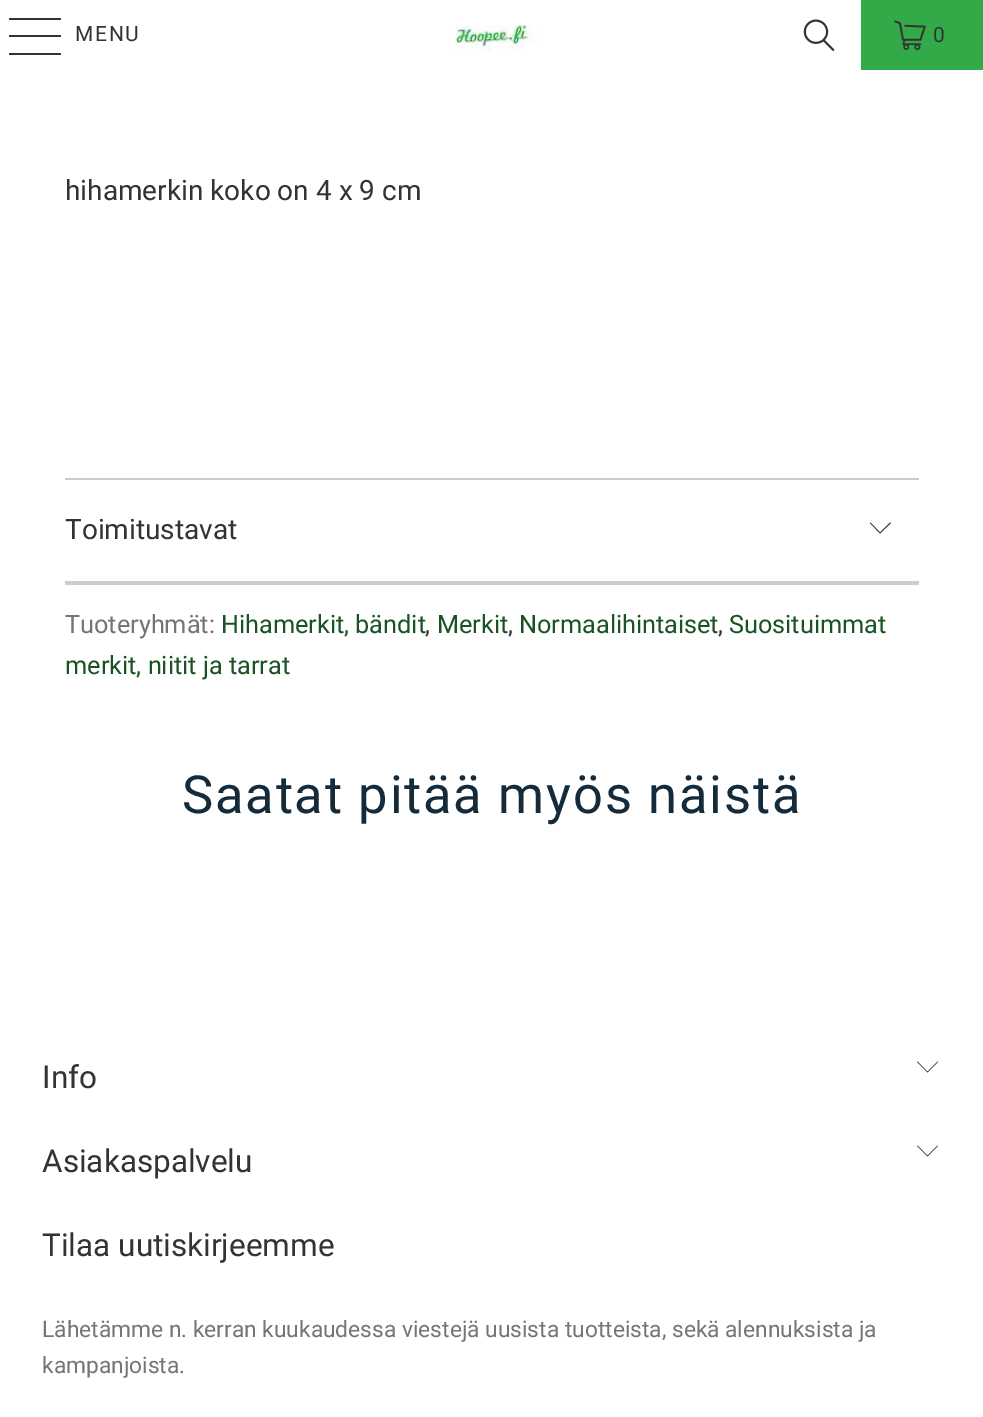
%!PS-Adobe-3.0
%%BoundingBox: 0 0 983 1417
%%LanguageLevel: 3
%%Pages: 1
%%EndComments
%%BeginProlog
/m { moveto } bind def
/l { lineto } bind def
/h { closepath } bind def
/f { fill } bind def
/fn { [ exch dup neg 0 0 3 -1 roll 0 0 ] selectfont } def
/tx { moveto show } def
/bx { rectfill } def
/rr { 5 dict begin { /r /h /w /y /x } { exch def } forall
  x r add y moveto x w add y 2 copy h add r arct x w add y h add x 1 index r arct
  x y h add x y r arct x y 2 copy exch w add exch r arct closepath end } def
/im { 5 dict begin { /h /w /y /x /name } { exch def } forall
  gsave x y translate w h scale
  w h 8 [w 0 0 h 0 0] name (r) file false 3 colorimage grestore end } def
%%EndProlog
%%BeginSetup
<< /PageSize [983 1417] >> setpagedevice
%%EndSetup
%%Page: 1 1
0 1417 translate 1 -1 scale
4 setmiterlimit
1 setgray
0 0 983 1417 bx
0.2 setgray
9 18 52 2 1 rr f
9 35 52 2 1 rr f
9 53 52 2 1 rr f
/Roboto-Regular 21 fn
75 41 m 1.75 0 (MENU) ashow
(image0.raw) 455 24 84 27 im
(image1.raw) 803 19 32 32 im
0.192 0.667 0.278 setrgbcolor
861 0 122 70 bx
(image2.raw) 894 20 32 30 im
0.2 setgray
933 42 m 1.75 0 (0) ashow
/Roboto-Regular 28 fn
(hihamerkin koko on 4 x 9 cm) 65 200 tx
0.8 setgray
65 478 854 2 bx
65 581 854 4 bx
0.2 setgray
(Toimitustavat) 65 539 tx
880 533.5 m 870 523 l 870.5 522.5 l 880 532.5 l 890 522.5 l 891 523 l h f
/Roboto-Regular 25.25 fn
0.459 setgray
(Tuoteryhmät:) 65 633 tx
0.098 0.325 0.137 setrgbcolor
(Hihamerkit, bändit) 221 633 tx
0.2 setgray
(,) 425 633 tx
0.098 0.325 0.137 setrgbcolor
(Merkit) 437 633 tx
0.2 setgray
(,) 508 633 tx
0.098 0.325 0.137 setrgbcolor
(Normaalihintaiset) 519 633 tx
0.2 setgray
(,) 718 633 tx
0.098 0.325 0.137 setrgbcolor
(Suosituimmat) 729 633 tx
(merkit, niitit ja tarrat) 65 674 tx
/Roboto-Regular 52.5 fn
0.078 0.169 0.231 setrgbcolor
182 813 m 1.75 0 (Saatat pitää myös näistä) ashow
/Roboto-Regular 31.5 fn
0.2 setgray
(Info) 42 1088 tx
927.5 1072.5 m 917 1062 l 917.5 1061.5 l 927.5 1071.5 l 937.5 1061.5 l 938 1062 l h f
(Asiakaspalvelu) 42 1172 tx
927.5 1156.5 m 917 1146 l 917.5 1145.5 l 927.5 1155.5 l 937.5 1145.5 l 938 1146 l h f
(Tilaa uutiskirjeemme) 42 1256 tx
/Roboto-Regular 22.75 fn
0.459 setgray
(Lähetämme n. kerran kuukaudessa viestejä uusista tuotteista, sekä alennuksista ja) 42 1337 tx
(kampanjoista.) 42 1373 tx
showpage
%%EOF
